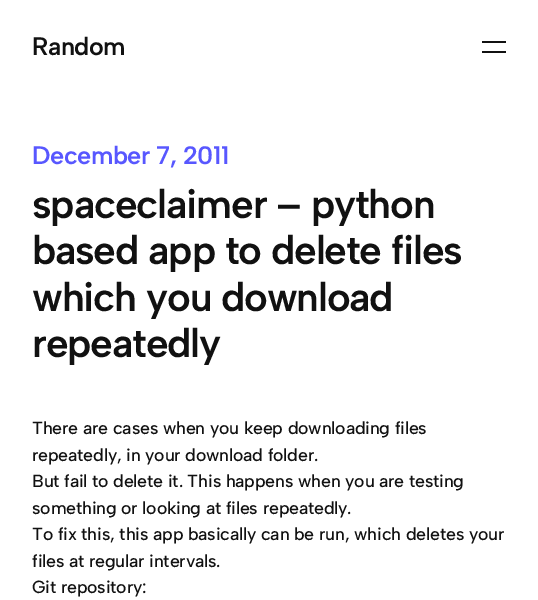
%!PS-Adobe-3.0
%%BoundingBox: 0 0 538 600
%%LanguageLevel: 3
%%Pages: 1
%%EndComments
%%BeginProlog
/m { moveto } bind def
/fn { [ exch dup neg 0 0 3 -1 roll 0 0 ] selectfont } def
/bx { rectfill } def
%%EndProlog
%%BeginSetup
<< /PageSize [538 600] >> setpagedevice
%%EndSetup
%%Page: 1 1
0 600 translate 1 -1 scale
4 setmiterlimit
1 setgray
0 0 538 600 bx
/AlbertSans-SemiBold 25.25 fn
0.067 setgray
32 55 m -0.5 0 (Random) ashow
482 41 24 2 bx
482 51 24 2 bx
0.345 0.341 1 setrgbcolor
32 164 m -0.5 0 (December 7, 2011) ashow
/AlbertSans-SemiBold 40.5 fn
0.067 setgray
32 218 m -1.2 0 (spaceclaimer – python) ashow
32 264 m -1.2 0 (based app to delete files) ashow
32 311 m -1.2 0 (which you download) ashow
32 357 m -1.2 0 (repeatedly) ashow
/AlbertSans-Medium 17.65 fn
32 434 m -0.18 0 (There are cases when you keep downloading files) ashow
32 461 m -0.18 0 (repeatedly, in your download folder.) ashow
32 487 m -0.18 0 (But fail to delete it. This happens when you are testing) ashow
32 514 m -0.18 0 (something or looking at files repeatedly.) ashow
32 540 m -0.18 0 (To fix this, this app basically can be run, which deletes your) ashow
32 567 m -0.18 0 (files at regular intervals.) ashow
32 593 m -0.18 0 (Git repository:) ashow
showpage
%%EOF
